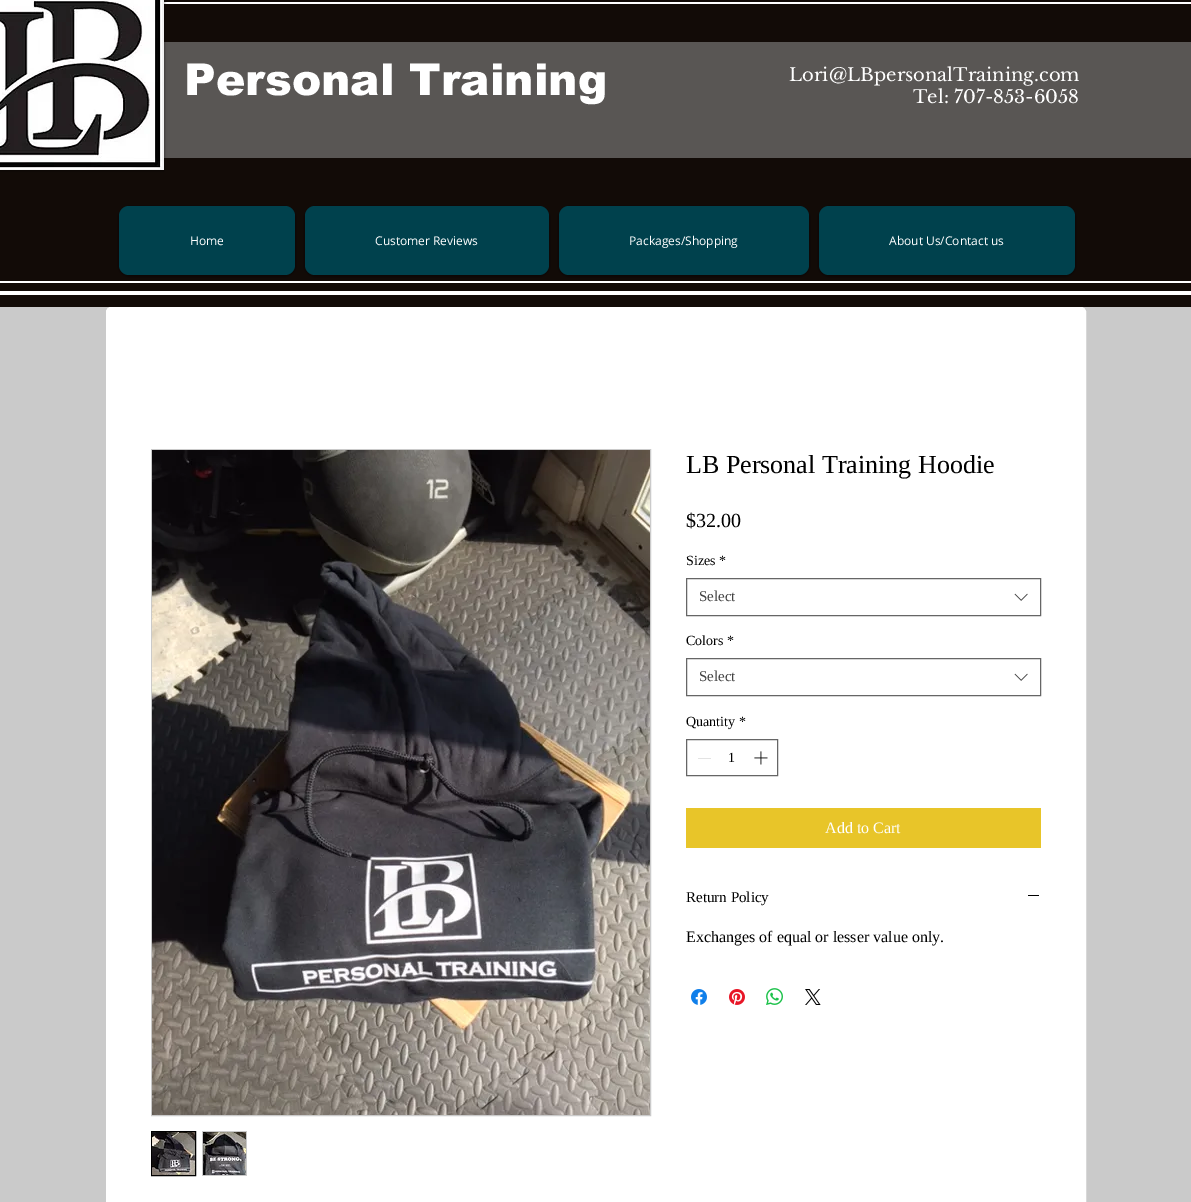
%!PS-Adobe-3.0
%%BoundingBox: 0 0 1191 1202
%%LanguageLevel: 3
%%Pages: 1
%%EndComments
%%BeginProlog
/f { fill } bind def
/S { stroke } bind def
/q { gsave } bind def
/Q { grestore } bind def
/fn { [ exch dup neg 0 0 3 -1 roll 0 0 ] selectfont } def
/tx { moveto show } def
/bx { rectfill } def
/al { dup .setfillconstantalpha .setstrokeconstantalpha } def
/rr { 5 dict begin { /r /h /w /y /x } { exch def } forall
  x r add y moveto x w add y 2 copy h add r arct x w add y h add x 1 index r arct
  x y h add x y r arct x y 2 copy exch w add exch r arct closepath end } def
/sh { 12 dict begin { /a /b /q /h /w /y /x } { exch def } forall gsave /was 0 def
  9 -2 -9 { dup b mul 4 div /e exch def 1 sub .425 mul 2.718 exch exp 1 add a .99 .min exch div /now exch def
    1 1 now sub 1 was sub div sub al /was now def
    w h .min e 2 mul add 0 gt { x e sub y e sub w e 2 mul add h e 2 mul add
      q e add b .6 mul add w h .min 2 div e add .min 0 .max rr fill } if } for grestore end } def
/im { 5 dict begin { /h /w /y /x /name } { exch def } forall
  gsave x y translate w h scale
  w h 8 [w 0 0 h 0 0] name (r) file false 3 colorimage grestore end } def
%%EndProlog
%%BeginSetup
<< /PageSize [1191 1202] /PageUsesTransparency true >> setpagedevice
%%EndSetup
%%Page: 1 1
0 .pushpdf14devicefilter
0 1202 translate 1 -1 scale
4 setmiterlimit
0.792 setgray
0 0 1191 1202 bx
0.071 0.043 0.027 setrgbcolor
0 0 1191 307 bx
1 setgray
0 291 1191 4 bx
164 2 1027 2 bx
0 281 1191 2 bx
0.349 0.337 0.329 setrgbcolor
164 42 1027 116 bx
0 setgray
-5 -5 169 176 0 1.5 0.5 sh
(image0.raw) 0 0 164 170 im
/arial-Black 44 fn
1 setgray
(Personal Training) 184 95 tx
/LibreBaskerville-Regular 18 fn
(Lori@LBpersonalTraining.com) 789 81 tx
(Tel: 707-853-6058) 913 103 tx
0 setgray
119 207 176 69 10 2 0.6 sh
0 0.255 0.302 setrgbcolor
119 206 176 69 10 rr f
/OpenSans-Regular 12 fn
1 setgray
(Home) 190 245 tx
0 setgray
305 207 244 69 10 2 0.6 sh
0 0.255 0.302 setrgbcolor
305 206 244 69 10 rr f
1 setgray
(Customer Reviews) 375 245 tx
0 setgray
559 207 250 69 10 2 0.6 sh
0 0.255 0.302 setrgbcolor
559 206 250 69 10 rr f
1 setgray
(Packages/Shopping) 629 245 tx
0 setgray
819 207 256 69 10 2 0.6 sh
0 0.255 0.302 setrgbcolor
819 206 256 69 10 rr f
1 setgray
(About Us/Contact us) 889 245 tx
106.5 307.5 979 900 4.5 rr q f Q
S
0.792 setgray
151.5 449.5 499 666 rectstroke
(image1.raw) 152 450 498 665 im
0 setgray
151.5 1131.5 44 44 rectstroke
(image2.raw) 152 1132 43 43 im
0.792 setgray
202 1131 45 45 bx
(image3.raw) 203 1132 43 43 im
/LiberationSerif-Regular 26 fn
0 setgray
(LB Personal Training Hoodie) 686 473 tx
/LiberationSerif-Regular 20 fn
($32.00) 686 527 tx
/LiberationSerif-Regular 14 fn
(Sizes) 686 565 tx
(*) 719 565 tx
0.4 setgray
686.5 578.5 354 37 rectstroke
/LiberationSerif-Regular 15 fn
0.267 setgray
(Select) 699 601 tx
(image4.raw) 1014 593 14 8 im
/LiberationSerif-Regular 14 fn
0 setgray
(Colors) 686 645 tx
(*) 727 645 tx
0.4 setgray
686.5 658.5 354 37 rectstroke
/LiberationSerif-Regular 15 fn
0.267 setgray
(Select) 699 681 tx
(image4.raw) 1014 673 14 8 im
/LiberationSerif-Regular 14 fn
0 setgray
(Quantity) 686 726 tx
(*) 739 726 tx
0.4 setgray
686.5 739.5 91 36 rectstroke
0.89 setgray
698 758 13 1 bx
0 setgray
(1) 728 762 tx
(image5.raw) 754 751 14 14 im
0.91 0.773 0.161 setrgbcolor
686 808 355 40 bx
/LiberationSerif-Regular 16 fn
1 setgray
(Add to Cart) 825 833 tx
/LiberationSerif-Regular 15 fn
0 setgray
(Return Policy) 686 902 tx
1028 895 11 1 bx
/LiberationSerif-Regular 16 fn
(Exchanges of equal or lesser value only.) 686 942 tx
(image6.raw) 691 989 16 16 im
(image7.raw) 729 989 16 16 im
(image8.raw) 766 988 17 17 im
(image9.raw) 805 989 16 16 im
.poppdf14devicefilter showpage
%%EOF
